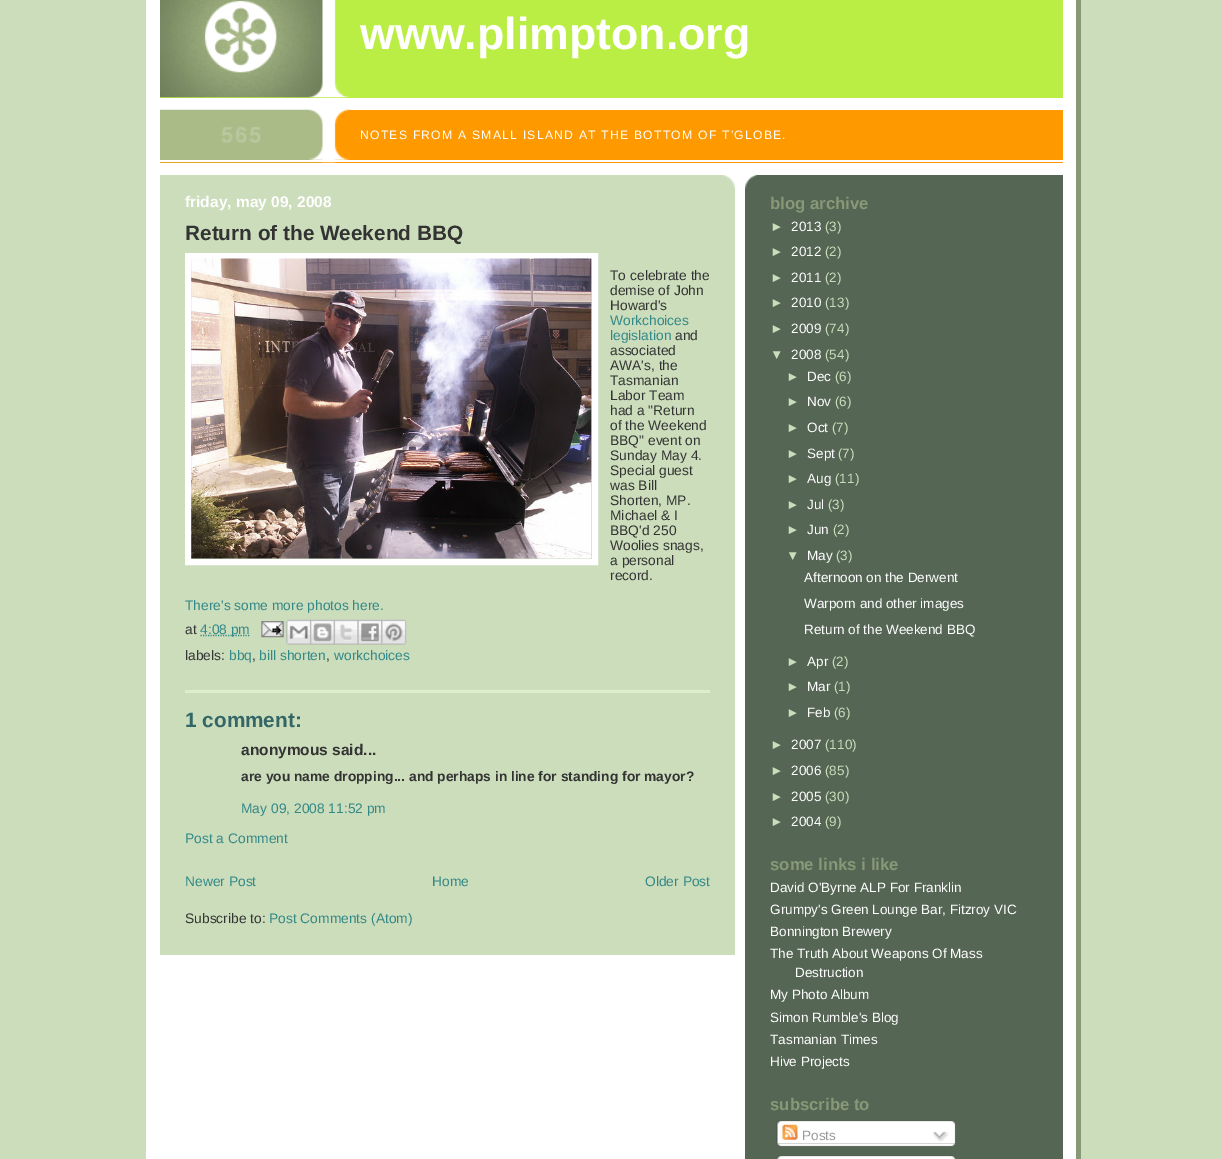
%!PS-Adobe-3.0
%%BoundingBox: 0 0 1222 1159
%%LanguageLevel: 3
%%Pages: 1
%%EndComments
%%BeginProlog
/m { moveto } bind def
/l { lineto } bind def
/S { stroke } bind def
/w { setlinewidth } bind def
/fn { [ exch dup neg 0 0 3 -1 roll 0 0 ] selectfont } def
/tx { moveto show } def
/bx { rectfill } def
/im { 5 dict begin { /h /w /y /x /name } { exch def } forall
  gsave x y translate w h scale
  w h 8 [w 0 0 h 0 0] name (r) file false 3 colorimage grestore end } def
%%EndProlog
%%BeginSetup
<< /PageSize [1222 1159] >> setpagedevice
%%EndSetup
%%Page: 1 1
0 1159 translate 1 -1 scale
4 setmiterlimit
0.8 0.867 0.733 setrgbcolor
0 0 1222 1159 bx
0.533 0.6 0.467 setrgbcolor
1076 0 5 1159 bx
1 setgray
146 0 930 1159 bx
0.733 0.933 0.267 setrgbcolor
160 0 903 98 bx
(image0.raw) 160 0 190 98 im
/LiberationSans-Bold 44.75 fn
1 setgray
(www.plimpton.org) 360 49 tx
1 0.6 0 setrgbcolor
160 110 903 53 bx
(image1.raw) 160 109 190 54 im
1 setgray
160 160 903 2 bx
(image2.raw) 308 145 42 15 im
(image3.raw) 221 126 40 17 im
/LiberationSans-Regular 12.2 fn
360 139 m 1.22 0 (NOTES FROM A SMALL ISLAND AT THE BOTTOM OF T'GLOBE.) ashow
0.8 0.867 0.733 setrgbcolor
160 175 575 780 bx
(image4.raw) 723 174 12 15 im
/LiberationSans-Bold 15.5 fn
1 setgray
(friday, may 09, 2008) 185 207 tx
/LiberationSans-Bold 20.75 fn
0.2 setgray
(Return of the Weekend BBQ) 185 240 tx
1 setgray
6 w
188 256 407 306 rectstroke
(image5.raw) 191 258 401 301 im
/LiberationSans-Regular 13.8 fn
0.2 setgray
(To celebrate the) 610 280 tx
(demise of John) 610 295 tx
(Howard's) 610 310 tx
0.2 0.533 0.533 setrgbcolor
(Workchoices) 610 325 tx
(legislation) 610 340 tx
0.2 setgray
(and) 675 340 tx
(associated) 610 355 tx
(AWA's, the) 610 370 tx
(Tasmanian) 610 385 tx
(Labor Team) 610 400 tx
(had a "Return) 610 415 tx
(of the Weekend) 610 430 tx
(BBQ" event on) 610 445 tx
(Sunday May 4.) 610 460 tx
(Special guest) 610 475 tx
(was Bill) 610 490 tx
(Shorten, MP.) 610 505 tx
(Michael & I) 610 520 tx
(BBQ'd 250) 610 535 tx
(Woolies snags,) 610 550 tx
(a personal) 610 565 tx
(record.) 610 580 tx
0.2 0.533 0.533 setrgbcolor
(There's some more photos here.) 185 610 tx
0.2 setgray
(at) 185 634 tx
0.2 0.533 0.533 setrgbcolor
1.2 w
[1.25 1.25] 0 setdash
200.5 635.5 m 250.5 635.5 l S
(4:08 pm) 200 634 tx
(image6.raw) 261 621 23 17 im
(image7.raw) 286 619 26 26 im
(image8.raw) 310 619 25 26 im
(image9.raw) 333 619 26 26 im
(image10.raw) 357 619 26 26 im
(image11.raw) 381 619 26 26 im
0.2 setgray
(labels:) 185 660 tx
0.2 0.533 0.533 setrgbcolor
(bbq) 229 660 tx
0.2 setgray
(,) 252 660 tx
0.2 0.533 0.533 setrgbcolor
(bill shorten) 259 660 tx
0.2 setgray
(,) 326 660 tx
0.2 0.533 0.533 setrgbcolor
(workchoices) 334 660 tx
0.867 0.933 0.8 setrgbcolor
185 690 525 3 bx
/LiberationSans-Bold 20.75 fn
0.2 0.4 0.4 setrgbcolor
(1 comment:) 185 727 tx
/LiberationSans-Bold 15.5 fn
0.2 setgray
(anonymous said...) 241 755 tx
/LiberationSans-Bold 13.8 fn
(are you name dropping... and perhaps in line for standing for mayor?) 241 781 tx
/LiberationSans-Regular 13.8 fn
0.2 0.533 0.533 setrgbcolor
(May 09, 2008 11:52 pm) 241 813 tx
(Post a Comment) 185 843 tx
(Newer Post) 185 886 tx
(Home) 432 886 tx
(Older Post) 645 886 tx
0.2 setgray
(Subscribe to:) 185 923 tx
0.2 0.533 0.533 setrgbcolor
(Post Comments \(Atom\)) 269 923 tx
0.333 0.4 0.333 setrgbcolor
745 175 318 984 bx
(image12.raw) 745 174 12 16 im
/LiberationSans-Bold 16.75 fn
0.533 0.6 0.467 setrgbcolor
(blog archive) 770 209 tx
/LiberationSans-Regular 13.5 fn
0.8 0.867 0.733 setrgbcolor
(►) 770 231 tx
1 setgray
(2013) 791 231 tx
0.8 0.867 0.733 setrgbcolor
(\(3\)) 825 231 tx
(►) 770 256 tx
1 setgray
(2012) 791 256 tx
0.8 0.867 0.733 setrgbcolor
(\(2\)) 825 256 tx
(►) 770 282 tx
1 setgray
(2011) 791 282 tx
0.8 0.867 0.733 setrgbcolor
(\(2\)) 825 282 tx
(►) 770 307 tx
1 setgray
(2010) 791 307 tx
0.8 0.867 0.733 setrgbcolor
(\(13\)) 825 307 tx
(►) 770 333 tx
1 setgray
(2009) 791 333 tx
0.8 0.867 0.733 setrgbcolor
(\(74\)) 825 333 tx
(▼) 770 359 tx
1 setgray
(2008) 791 359 tx
0.8 0.867 0.733 setrgbcolor
(\(54\)) 825 359 tx
(►) 786 381 tx
1 setgray
(Dec) 807 381 tx
0.8 0.867 0.733 setrgbcolor
(\(6\)) 835 381 tx
(►) 786 406 tx
1 setgray
(Nov) 807 406 tx
0.8 0.867 0.733 setrgbcolor
(\(6\)) 835 406 tx
(►) 786 432 tx
1 setgray
(Oct) 807 432 tx
0.8 0.867 0.733 setrgbcolor
(\(7\)) 832 432 tx
(►) 786 458 tx
1 setgray
(Sept) 807 458 tx
0.8 0.867 0.733 setrgbcolor
(\(7\)) 838 458 tx
(►) 786 483 tx
1 setgray
(Aug) 807 483 tx
0.8 0.867 0.733 setrgbcolor
(\(11\)) 835 483 tx
(►) 786 509 tx
1 setgray
(Jul) 807 509 tx
0.8 0.867 0.733 setrgbcolor
(\(3\)) 828 509 tx
(►) 786 534 tx
1 setgray
(Jun) 807 534 tx
0.8 0.867 0.733 setrgbcolor
(\(2\)) 833 534 tx
(▼) 786 560 tx
1 setgray
(May) 807 560 tx
0.8 0.867 0.733 setrgbcolor
(\(3\)) 836 560 tx
1 setgray
(Afternoon on the Derwent) 804 582 tx
(Warporn and other images) 804 608 tx
(Return of the Weekend BBQ) 804 634 tx
0.8 0.867 0.733 setrgbcolor
(►) 786 666 tx
1 setgray
(Apr) 807 666 tx
0.8 0.867 0.733 setrgbcolor
(\(2\)) 832 666 tx
(►) 786 691 tx
1 setgray
(Mar) 807 691 tx
0.8 0.867 0.733 setrgbcolor
(\(1\)) 834 691 tx
(►) 786 717 tx
1 setgray
(Feb) 807 717 tx
0.8 0.867 0.733 setrgbcolor
(\(6\)) 834 717 tx
(►) 770 749 tx
1 setgray
(2007) 791 749 tx
0.8 0.867 0.733 setrgbcolor
(\(110\)) 825 749 tx
(►) 770 775 tx
1 setgray
(2006) 791 775 tx
0.8 0.867 0.733 setrgbcolor
(\(85\)) 825 775 tx
(►) 770 801 tx
1 setgray
(2005) 791 801 tx
0.8 0.867 0.733 setrgbcolor
(\(30\)) 825 801 tx
(►) 770 826 tx
1 setgray
(2004) 791 826 tx
0.8 0.867 0.733 setrgbcolor
(\(9\)) 825 826 tx
/LiberationSans-Bold 16.75 fn
0.533 0.6 0.467 setrgbcolor
(some links i like) 770 870 tx
/LiberationSans-Regular 13.5 fn
1 setgray
(David O'Byrne ALP For Franklin) 770 892 tx
(Grumpy's Green Lounge Bar, Fitzroy VIC) 770 914 tx
(Bonnington Brewery) 770 936 tx
(The Truth About Weapons Of Mass) 770 958 tx
(Destruction) 795 977 tx
(My Photo Album) 770 999 tx
(Simon Rumble's Blog) 770 1022 tx
(Tasmanian Times) 770 1044 tx
(Hive Projects) 770 1066 tx
/LiberationSans-Bold 16.75 fn
0.533 0.6 0.467 setrgbcolor
(subscribe to) 770 1110 tx
(image13.raw) 776 1120 180 24 im
(image14.raw) 782 1124 16 16 im
/LiberationSans-Regular 13.5 fn
0.6 setgray
(Posts) 802 1140 tx
(image15.raw) 932 1131 17 11 im
(image16.raw) 776 1143 179 4 im
(image17.raw) 776 1155 180 4 im
showpage
%%EOF
